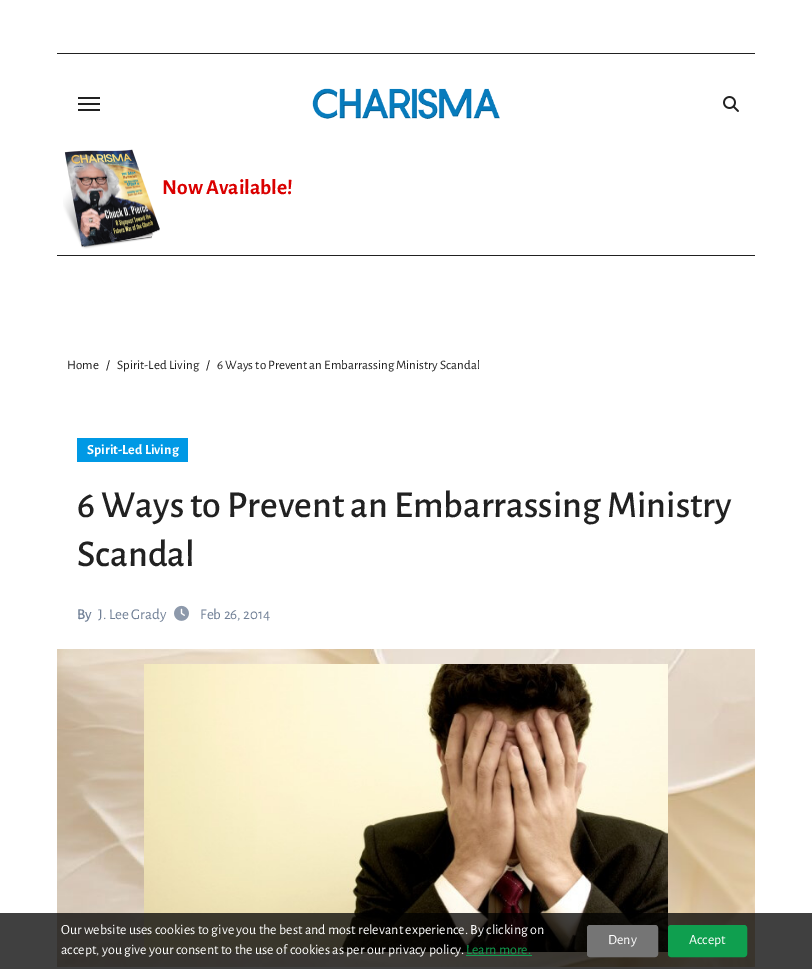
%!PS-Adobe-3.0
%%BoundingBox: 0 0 812 969
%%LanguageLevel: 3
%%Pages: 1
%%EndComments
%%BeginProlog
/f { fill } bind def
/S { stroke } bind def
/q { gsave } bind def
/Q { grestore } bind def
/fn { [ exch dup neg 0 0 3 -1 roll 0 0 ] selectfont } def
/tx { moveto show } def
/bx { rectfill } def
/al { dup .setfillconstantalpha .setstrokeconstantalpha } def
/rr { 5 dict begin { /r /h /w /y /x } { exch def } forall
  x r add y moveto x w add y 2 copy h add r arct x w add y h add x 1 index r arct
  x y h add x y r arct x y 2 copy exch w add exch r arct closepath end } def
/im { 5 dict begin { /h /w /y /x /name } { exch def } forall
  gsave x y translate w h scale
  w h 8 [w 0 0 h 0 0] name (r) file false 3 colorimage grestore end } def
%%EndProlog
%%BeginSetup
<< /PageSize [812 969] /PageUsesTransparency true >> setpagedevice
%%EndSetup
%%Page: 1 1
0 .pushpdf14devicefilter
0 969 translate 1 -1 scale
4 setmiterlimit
1 setgray
0 0 812 969 bx
0.129 setgray
57 53 698 1 bx
57 255 698 1 bx
78 97 22 2 bx
78 103 22 2 bx
78 109 22 2 bx
(image0.raw) 312 88 188 31 im
(image1.raw) 723 96 16 16 im
(image2.raw) 63 149 97 100 im
/AlegreyaSans-Bold 21.5 fn
0.855 0 0 setrgbcolor
(Now Available!) 162 194 tx
/AlegreyaSans-Regular 13 fn
0.129 setgray
(Home) 67 369 tx
0 setgray
(/) 106 369 tx
0.129 setgray
(Spirit-Led Living) 117 369 tx
0 setgray
(/) 206 369 tx
0.129 setgray
(6 Ways to Prevent an Embarrassing Ministry Scandal) 217 369 tx
0 0.6 0.898 setrgbcolor
77 438 111 24 bx
/AlegreyaSans-Bold 14 fn
1 setgray
(Spirit-Led Living) 87 454 tx
/AlegreyaSans-Medium 38 fn
0.129 setgray
(6 Ways to Prevent an Embarrassing Ministry) 77 517 tx
(Scandal) 77 566 tx
/AlegreyaSans-Medium 15 fn
0.443 0.502 0.588 setrgbcolor
(By) 77 619 tx
/AlegreyaSans-Regular 15 fn
(J. Lee Grady) 98 619 tx
(image3.raw) 174 605 15 16 im
(Feb 26, 2014) 200 619 tx
(image4.raw) 57 649 698 318 im
(image5.raw) 144 664 524 288 im
0.75 al
0 setgray
0 913 812 56 bx
/AlegreyaSans-Regular 14 fn
1 al
1 setgray
(Our website uses cookies to give you the best and most relevant experience. By clicking on) 61 934 tx
(accept, you give your consent to the use of cookies as per our privacy policy.) 61 954 tx
0.059 0.624 0.31 setrgbcolor
(Learn more.) 466 954 tx
466 955 66 1 bx
0.459 setgray
587.5 925.5 70 31 2.5 rr q f Q
S
1 setgray
(Deny) 608 944 tx
0.059 0.624 0.31 setrgbcolor
668.5 925.5 78 31 2.5 rr q f Q
S
1 setgray
(Accept) 689 944 tx
.poppdf14devicefilter showpage
%%EOF
